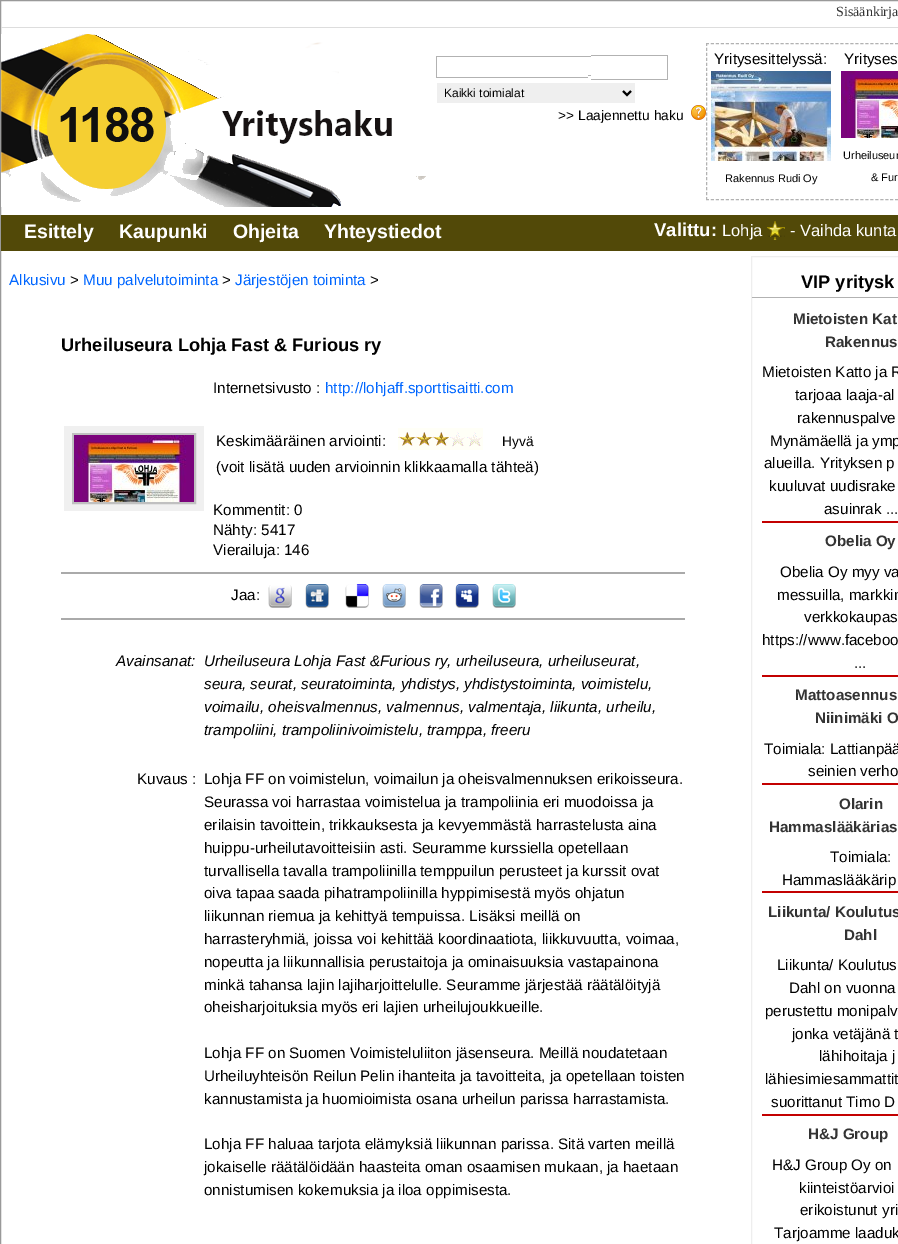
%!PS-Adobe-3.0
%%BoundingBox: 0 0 898 1244
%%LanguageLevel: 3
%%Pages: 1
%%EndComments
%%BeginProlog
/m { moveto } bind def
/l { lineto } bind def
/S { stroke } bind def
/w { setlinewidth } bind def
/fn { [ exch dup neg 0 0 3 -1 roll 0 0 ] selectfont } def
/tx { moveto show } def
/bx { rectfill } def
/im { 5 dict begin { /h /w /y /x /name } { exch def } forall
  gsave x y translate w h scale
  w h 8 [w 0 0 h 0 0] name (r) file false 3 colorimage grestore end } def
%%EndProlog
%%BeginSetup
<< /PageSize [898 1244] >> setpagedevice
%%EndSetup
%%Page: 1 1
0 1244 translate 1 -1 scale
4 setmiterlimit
1 setgray
0 0 898 1244 bx
0.6 setgray
0.5 0.5 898 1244 rectstroke
0.867 setgray
1 27 897 1 bx
/LiberationSerif-Regular 14 fn
0.2 setgray
(Sisäänkirja) 836 16 tx
(image0.raw) 1 34 425 173 im
0.698 setgray
591 55 77 1 bx
436 56 155 1 bx
667 55 1 25 bx
436 77 152 1 bx
436 56 1 22 bx
588 75 3 1 bx
591 79 77 1 bx
0.937 setgray
437 83 198 20 bx
0 setgray
2 w
623 91 m 627 95 l 631 91 l S
/LiberationSans-Regular 12 fn
(Kaikki toimialat) 444 97 tx
/LiberationSans-Regular 13.75 fn
(>> Laajennettu haku) 558 120 tx
(image1.raw) 691 105 15 15 im
0.698 setgray
1 w
[3 1.98] 0 setdash
706 43.5 m 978 43.5 l S
706 199.5 m 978 199.5 l S
[3 1.97] 0 setdash
706.5 43 m 706.5 200 l S
/LiberationSans-Regular 15.2 fn
0 setgray
(Yritysesittelyssä:) 714 64 tx
(image2.raw) 711 71 120 90 im
/LiberationSans-Regular 11 fn
(Rakennus Rudi Oy) 725 182 tx
/LiberationSans-Regular 15.2 fn
(Yrityses) 844 64 tx
(image3.raw) 841 71 57 67 im
/LiberationSans-Regular 11 fn
(Urheiluseur) 843 159 tx
(& Fur) 871 181 tx
0.322 0.286 0.031 setrgbcolor
1 215 897 36 bx
/LiberationSans-Bold 19.5 fn
1 setgray
(Esittely) 24 238 tx
(Kaupunki) 119 238 tx
(Ohjeita) 233 238 tx
(Yhteystiedot) 324 238 tx
/LiberationSans-Bold 18.5 fn
(Valittu:) 654 236 tx
/LiberationSans-Regular 16.5 fn
(Lohja) 722 236 tx
(image4.raw) 767 221 18 19 im
(- Vaihda kunta) 790 236 tx
/LiberationSans-Regular 15.2 fn
0 0.4 1 setrgbcolor
(Alkusivu) 9 285 tx
0 setgray
(>) 70 285 tx
0 0.4 1 setrgbcolor
(Muu palvelutoiminta) 83 285 tx
0 setgray
(>) 222 285 tx
0 0.4 1 setrgbcolor
(Järjestöjen toiminta) 235 285 tx
0 setgray
(>) 370 285 tx
/LiberationSans-Bold 18.25 fn
(Urheiluseura Lohja Fast & Furious ry) 61 351 tx
0.941 setgray
64 426 140 85 bx
0.753 setgray
2 w
[] 0 setdash
73 434 122 69 rectstroke
(image5.raw) 74 435 120 67 im
/LiberationSans-Regular 15.2 fn
0 setgray
(Internetsivusto :) 213 393 tx
0 0.4 1 setrgbcolor
(http://lohjaff.sporttisaitti.com) 325 393 tx
0 setgray
(Keskimääräinen arviointi:) 216 446 tx
(image6.raw) 398 428 17 22 im
(image6.raw) 415 428 17 22 im
(image6.raw) 432 428 17 22 im
(image7.raw) 449 428 17 22 im
(image7.raw) 466 428 17 22 im
/LiberationSans-Regular 13.75 fn
(Hyvä) 502 446 tx
/LiberationSans-Regular 15.2 fn
(\(voit lisätä uuden arvioinnin klikkaamalla tähteä\)) 216 472 tx
(Kommentit: 0) 213 515 tx
(Nähty: 5417) 213 535 tx
(Vierailuja: 146) 213 555 tx
0.667 setgray
61 572 624 2 bx
61 618 624 2 bx
0 setgray
(Jaa:) 231 600 tx
(image8.raw) 268 585 24 23 im
(image9.raw) 305 584 24 24 im
(image10.raw) 345 584 24 24 im
(image11.raw) 382 584 24 24 im
(image12.raw) 419 584 24 24 im
(image13.raw) 455 584 24 24 im
(image14.raw) 492 584 24 24 im
/LiberationSans-Italic 15.2 fn
(Avainsanat:) 116 666 tx
(Urheiluseura Lohja Fast &Furious ry, urheiluseura, urheiluseurat,) 204 666 tx
(seura, seurat, seuratoiminta, yhdistys, yhdistystoiminta, voimistelu,) 204 689 tx
(voimailu, oheisvalmennus, valmennus, valmentaja, liikunta, urheilu,) 204 712 tx
(trampoliini, trampoliinivoimistelu, tramppa, freeru) 204 735 tx
/LiberationSans-Regular 15.2 fn
(Kuvaus :) 137 784 tx
(Lohja FF on voimistelun, voimailun ja oheisvalmennuksen erikoisseura.) 204 784 tx
(Seurassa voi harrastaa voimistelua ja trampoliinia eri muodoissa ja) 204 807 tx
(erilaisin tavoittein, trikkauksesta ja kevyemmästä harrastelusta aina) 204 830 tx
(huippu-urheilutavoitteisiin asti. Seuramme kurssiella opetellaan) 204 853 tx
(turvallisella tavalla trampoliinilla temppuilun perusteet ja kurssit ovat) 204 876 tx
(oiva tapaa saada pihatrampoliinilla hyppimisestä myös ohjatun) 204 898 tx
(liikunnan riemua ja kehittyä tempuissa. Lisäksi meillä on) 204 921 tx
(harrasteryhmiä, joissa voi kehittää koordinaatiota, liikkuvuutta, voimaa,) 204 944 tx
(nopeutta ja liikunnallisia perustaitoja ja ominaisuuksia vastapainona) 204 967 tx
(minkä tahansa lajin lajiharjoittelulle. Seuramme järjestää räätälöityjä) 204 990 tx
(oheisharjoituksia myös eri lajien urheilujoukkueille.) 204 1012 tx
(Lohja FF on Suomen Voimisteluliiton jäsenseura. Meillä noudatetaan) 204 1058 tx
(Urheiluyhteisön Reilun Pelin ihanteita ja tavoitteita, ja opetellaan toisten) 204 1081 tx
(kannustamista ja huomioimista osana urheilun parissa harrastamista.) 204 1104 tx
(Lohja FF haluaa tarjota elämyksiä liikunnan parissa. Sitä varten meillä) 204 1149 tx
(jokaiselle räätälöidään haasteita oman osaamisen mukaan, ja haetaan) 204 1172 tx
(onnistumisen kokemuksia ja iloa oppimisesta.) 204 1195 tx
0.933 setgray
1 w
751.5 256.5 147 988 rectstroke
0.698 setgray
752 297 146 1 bx
/LiberationSans-Bold 18.25 fn
0 setgray
(VIP yritysk) 801 288 tx
/LiberationSans-Bold 15.2 fn
0.2 setgray
(Mietoisten Kat) 793 324 tx
(Rakennus) 825 347 tx
/LiberationSans-Regular 15.2 fn
0 setgray
(Mietoisten Katto ja R) 762 377 tx
(tarjoaa laaja-al) 795 400 tx
(rakennuspalve) 797 423 tx
(Mynämäellä ja ymp) 770 446 tx
(alueilla. Yrityksen p) 764 468 tx
(kuuluvat uudisrake) 769 491 tx
(asuinrak ...) 824 514 tx
0.765 0 0 setrgbcolor
762 521 136 2 bx
/LiberationSans-Bold 15.2 fn
0.2 setgray
(Obelia Oy) 825 546 tx
/LiberationSans-Regular 15.2 fn
0 setgray
(Obelia Oy myy va) 780 577 tx
(messuilla, markkin) 777 600 tx
(verkkokaupas) 804 622 tx
(https://www.faceboo) 762 645 tx
(...) 854 668 tx
0.765 0 0 setrgbcolor
762 675 136 2 bx
/LiberationSans-Bold 15.2 fn
0.2 setgray
(Mattoasennus) 795 700 tx
(Niinimäki O) 815 723 tx
/LiberationSans-Regular 15.2 fn
0 setgray
(Toimiala: Lattianpää) 764 754 tx
(seinien verho) 808 776 tx
0.765 0 0 setrgbcolor
762 783 136 2 bx
/LiberationSans-Bold 15.2 fn
0.2 setgray
(Olarin) 839 809 tx
(Hammaslääkärias) 769 832 tx
/LiberationSans-Regular 15.2 fn
0 setgray
(Toimiala:) 830 862 tx
(Hammaslääkärip) 782 885 tx
0.765 0 0 setrgbcolor
762 891 136 2 bx
/LiberationSans-Bold 15.2 fn
0.2 setgray
(Liikunta/ Koulutus) 768 917 tx
(Dahl) 844 940 tx
/LiberationSans-Regular 15.2 fn
0 setgray
(Liikunta/ Koulutus) 777 970 tx
(Dahl on vuonna) 789 993 tx
(perustettu monipalv) 765 1016 tx
(jonka vetäjänä t) 792 1039 tx
(lähihoitaja j) 819 1061 tx
(lähiesimiesammattit) 765 1084 tx
(suorittanut Timo D) 771 1107 tx
0.765 0 0 setrgbcolor
762 1114 136 2 bx
/LiberationSans-Bold 15.2 fn
0.2 setgray
(H&J Group) 808 1139 tx
/LiberationSans-Regular 15.2 fn
0 setgray
(H&J Group Oy on) 772 1170 tx
(kiinteistöarvioi) 799 1193 tx
(erikoistunut yri) 800 1215 tx
(Tarjoamme laaduk) 774 1238 tx
showpage
%%EOF
